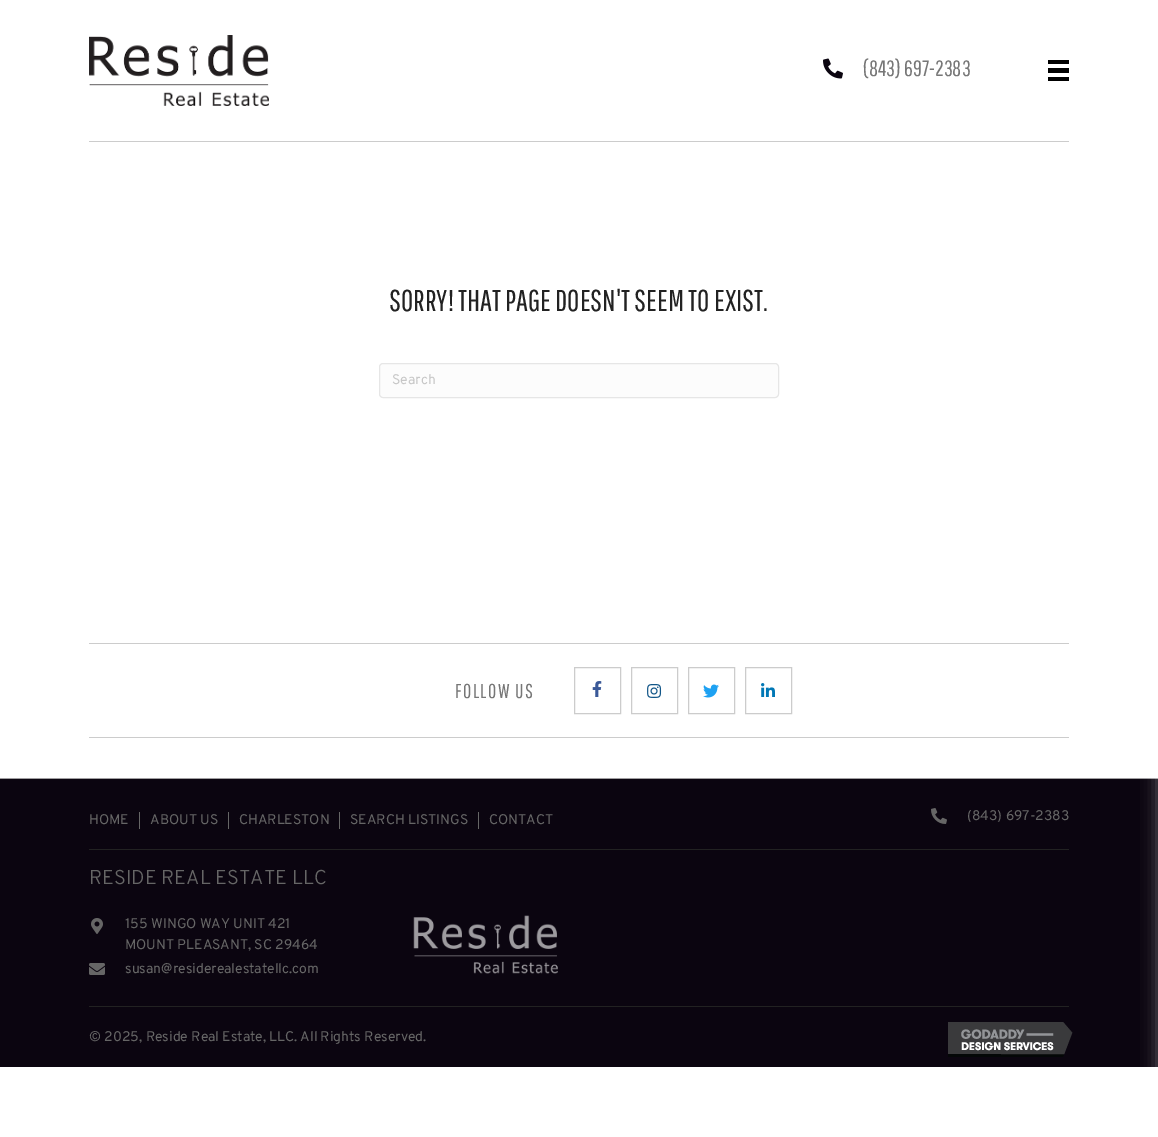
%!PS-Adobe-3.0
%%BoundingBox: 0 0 1158 1137
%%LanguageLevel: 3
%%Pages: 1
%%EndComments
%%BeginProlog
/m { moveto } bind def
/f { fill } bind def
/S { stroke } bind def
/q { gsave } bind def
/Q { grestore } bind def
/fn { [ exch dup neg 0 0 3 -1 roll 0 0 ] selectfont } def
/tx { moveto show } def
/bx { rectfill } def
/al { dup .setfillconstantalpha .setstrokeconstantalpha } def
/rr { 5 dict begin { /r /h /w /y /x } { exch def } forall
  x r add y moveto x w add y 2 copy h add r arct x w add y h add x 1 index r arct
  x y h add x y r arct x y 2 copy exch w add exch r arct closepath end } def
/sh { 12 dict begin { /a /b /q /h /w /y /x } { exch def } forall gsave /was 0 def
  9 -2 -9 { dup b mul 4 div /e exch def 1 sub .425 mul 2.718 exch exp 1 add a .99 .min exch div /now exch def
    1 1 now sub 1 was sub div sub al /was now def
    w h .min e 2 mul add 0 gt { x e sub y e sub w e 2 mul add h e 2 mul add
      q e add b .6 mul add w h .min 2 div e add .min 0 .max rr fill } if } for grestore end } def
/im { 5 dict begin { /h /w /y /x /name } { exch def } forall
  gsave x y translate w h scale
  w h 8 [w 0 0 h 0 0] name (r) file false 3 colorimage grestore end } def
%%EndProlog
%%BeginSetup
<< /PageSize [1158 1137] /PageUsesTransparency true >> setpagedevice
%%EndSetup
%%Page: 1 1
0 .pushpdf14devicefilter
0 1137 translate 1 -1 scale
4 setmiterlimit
1 setgray
0 0 1158 1137 bx
0.8 setgray
89 141 980 1 bx
(image0.raw) 89 35 180 71 im
(image1.raw) 823 58 20 21 im
/PathwayGothicOne-Regular 22 fn
0.467 setgray
(\(843\) 697-2383) 863 76 tx
0 setgray
1048 60 21 4 bx
1048 68 21 5 bx
1048 77 21 4 bx
/PathwayGothicOne-Regular 30 fn
0.133 setgray
(SORRY! THAT PAGE DOESN'T SEEM TO EXIST.) 389 311 tx
0.988 setgray
379.5 363.5 399 34 3.5 rr q f Q
0.902 setgray
S
/Overpass-Regular 14 fn
0.78 setgray
(Search) 392 384 tx
0.8 setgray
89 643 980 1 bx
/PathwayGothicOne-Regular 20 fn
0.467 setgray
455 698 m 1.5 0 (FOLLOW US) ashow
0.8 setgray
574.5 667.5 46 46 rectstroke
(image2.raw) 592 681 10 16 im
631.5 667.5 46 46 rectstroke
(image3.raw) 647 684 15 14 im
688.5 667.5 46 46 rectstroke
(image4.raw) 703 684 16 14 im
745.5 667.5 46 46 rectstroke
(image5.raw) 761 683 14 14 im
89 737 980 1 bx
0.043 0.02 0.063 setrgbcolor
0 779 1158 288 bx
0.627 0.62 0.631 setrgbcolor
0 778 1158 1 bx
/Overpass-Regular 14 fn
0.4 setgray
(HOME) 89 824 tx
139 812 1 17 bx
(ABOUT US) 150 824 tx
228 812 1 17 bx
(CHARLESTON) 239 824 tx
339 812 1 17 bx
(SEARCH LISTINGS) 350 824 tx
478 812 1 17 bx
(CONTACT) 489 824 tx
(image6.raw) 931 808 16 16 im
(\(843\) 697-2383) 967 820 tx
0.133 setgray
89 849 980 1 bx
/Overpass-Light 20 fn
0.4 setgray
(RESIDE REAL ESTATE LLC) 89 884 tx
(image7.raw) 91 918 12 16 im
/Overpass-Regular 14 fn
(155 WINGO WAY UNIT 421) 125 928 tx
(MOUNT PLEASANT, SC 29464) 125 949 tx
(image8.raw) 89 963 16 12 im
(susan@residerealestatellc.com) 125 973 tx
(image9.raw) 413 915 145 59 im
0.133 setgray
89 1006 980 1 bx
0.4 setgray
(© 2025, Reside Real Estate, LLC. All Rights Reserved.) 89 1041 tx
(image10.raw) 948 1022 125 35 im
1 setgray
1157 -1 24 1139 0 7.5 0.33 sh
.poppdf14devicefilter showpage
%%EOF
